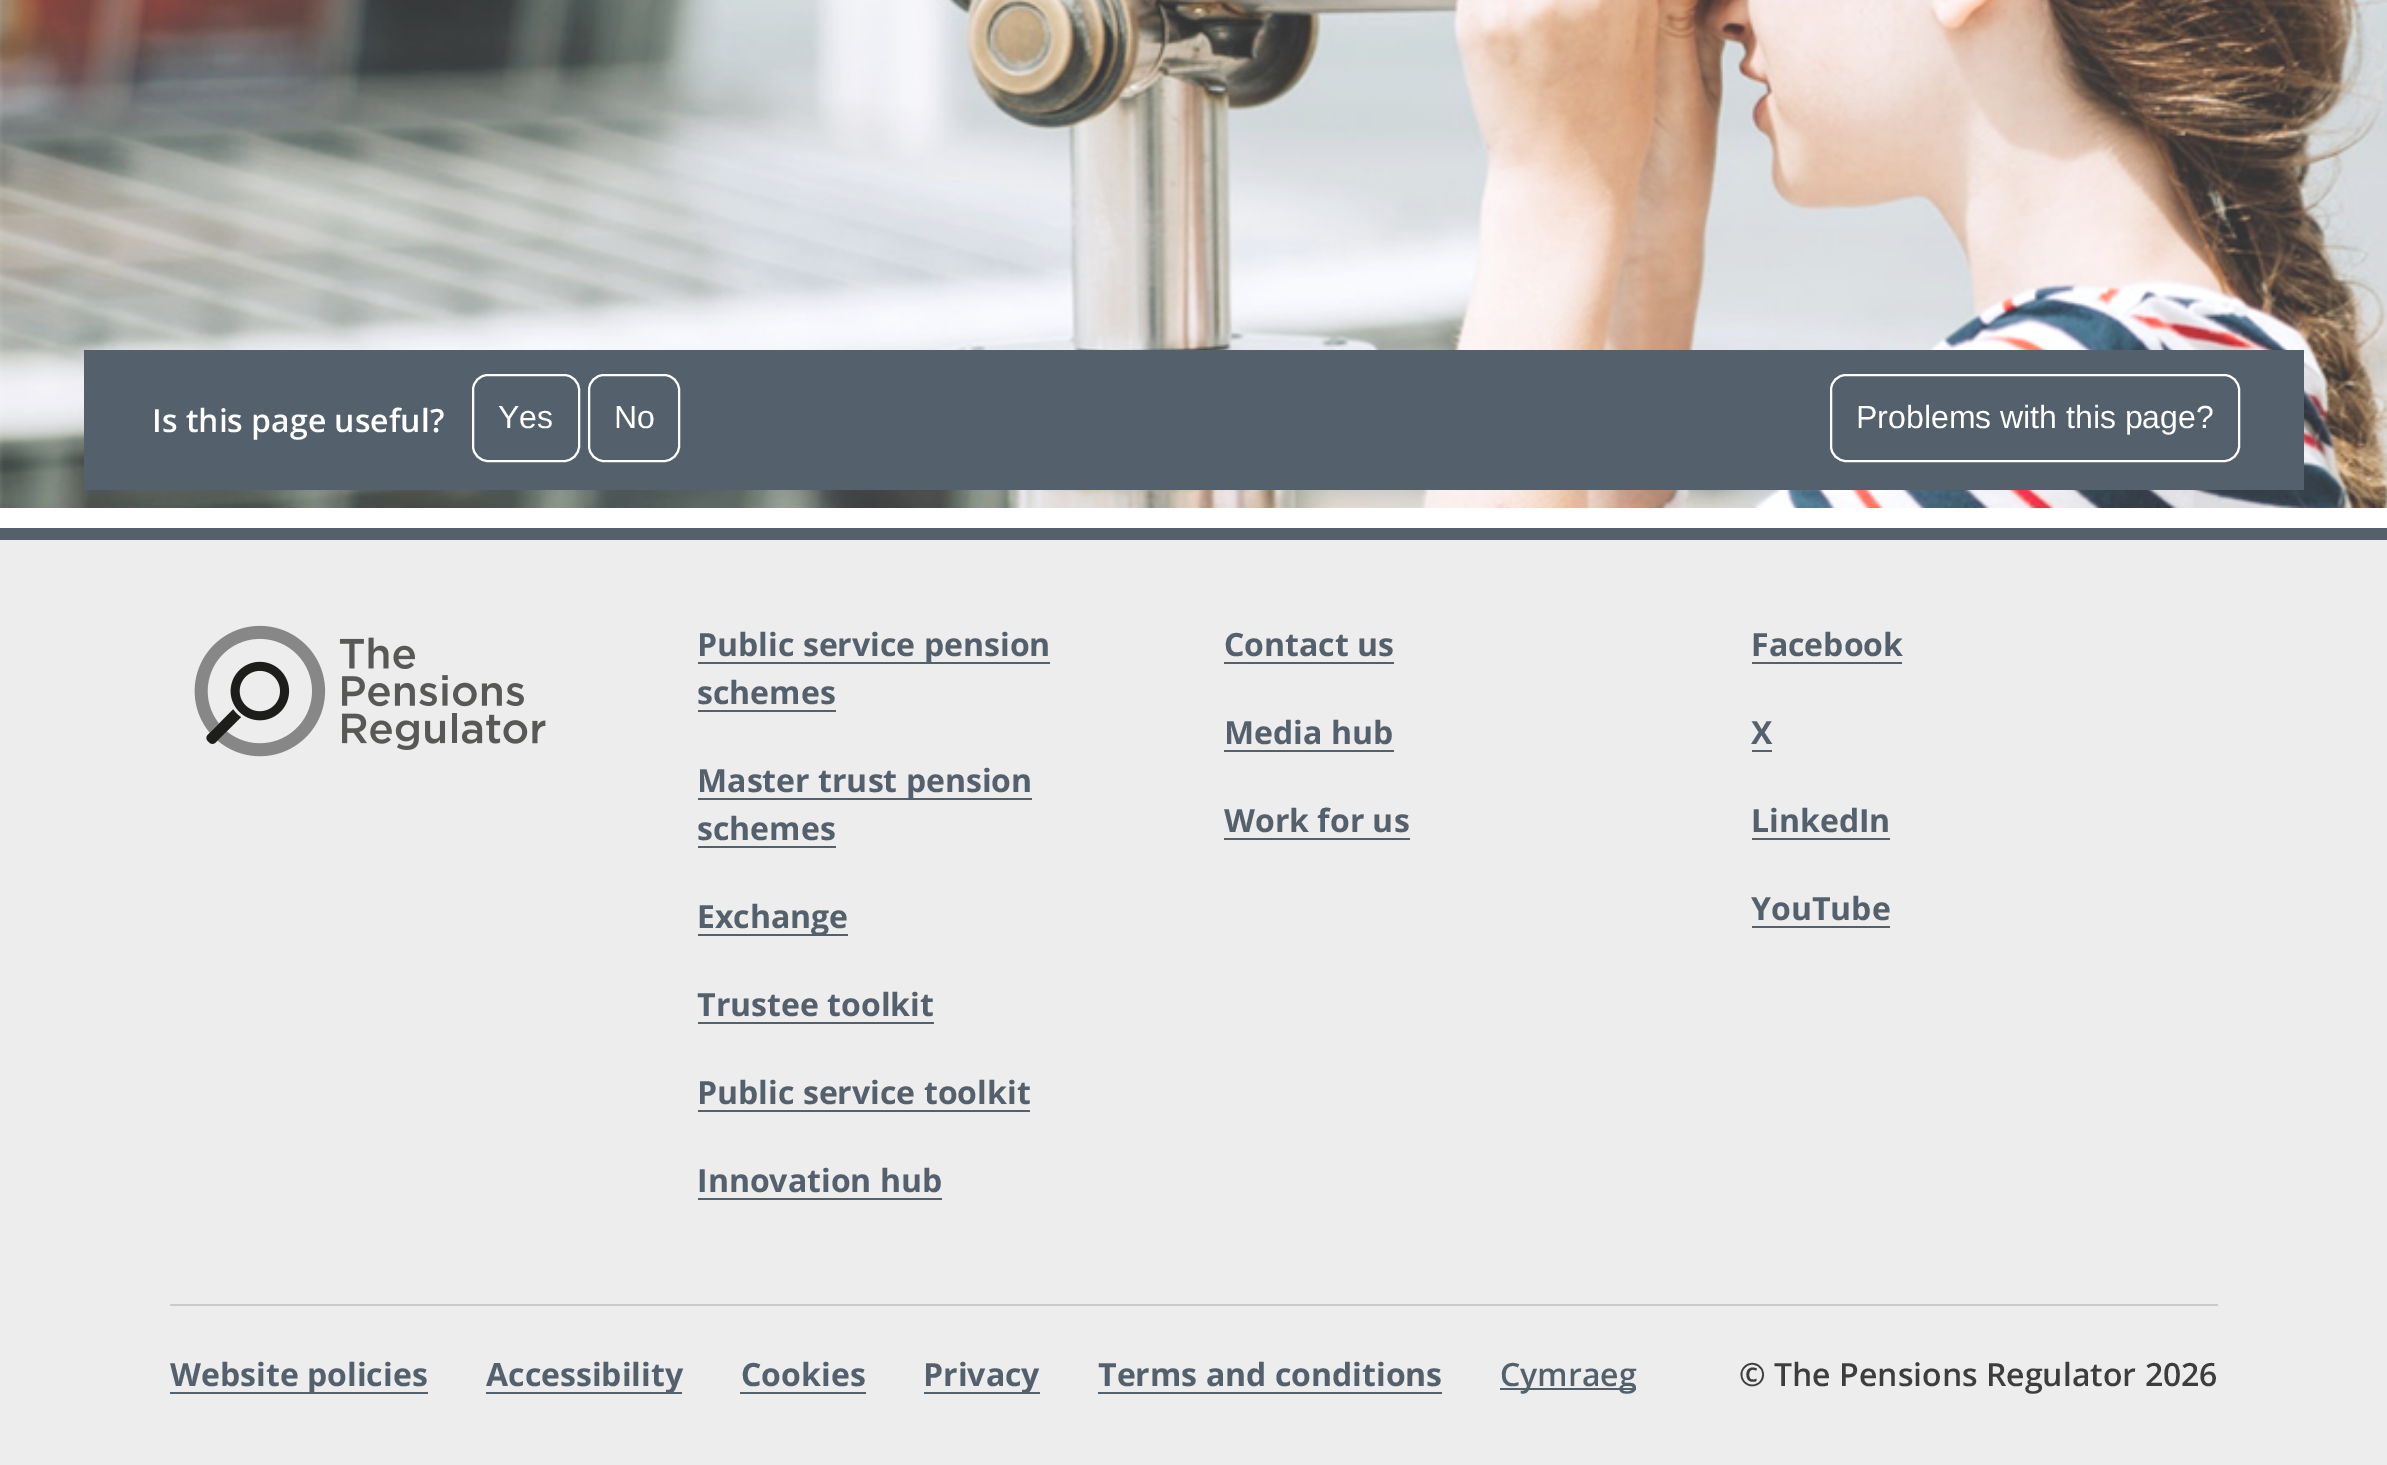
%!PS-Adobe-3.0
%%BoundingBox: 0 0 2387 1465
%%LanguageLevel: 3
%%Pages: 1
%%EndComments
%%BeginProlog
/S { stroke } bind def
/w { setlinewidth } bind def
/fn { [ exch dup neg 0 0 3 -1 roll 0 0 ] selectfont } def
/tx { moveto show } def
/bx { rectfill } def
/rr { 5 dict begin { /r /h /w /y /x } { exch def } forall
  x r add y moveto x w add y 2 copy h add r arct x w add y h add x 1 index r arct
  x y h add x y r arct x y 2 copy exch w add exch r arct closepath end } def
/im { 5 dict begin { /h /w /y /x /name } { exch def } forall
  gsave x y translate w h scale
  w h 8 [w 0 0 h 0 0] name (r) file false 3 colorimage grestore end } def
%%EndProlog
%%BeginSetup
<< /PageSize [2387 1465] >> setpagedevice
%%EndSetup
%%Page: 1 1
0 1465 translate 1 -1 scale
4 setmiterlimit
1 setgray
0 0 2387 1465 bx
(image0.raw) 0 0 2387 508 im
0.329 0.38 0.424 setrgbcolor
84 350 2220 140 bx
/OpenSans-SemiBold 32 fn
1 setgray
(Is this page useful?) 152 432 tx
2 w
473 375 106 86 15 rr S
/LiberationSans-Regular 32 fn
(Yes) 498 428 tx
589 375 90 86 15 rr S
(No) 614 428 tx
1831 375 408 86 15 rr S
(Problems with this page?) 1856 428 tx
0.929 setgray
0 540 2387 925 bx
0.329 0.38 0.424 setrgbcolor
0 528 2387 12 bx
(image1.raw) 194 625 352 132 im
698 662 352 2 bx
/OpenSans-Bold 32 fn
(Public service pension) 697 656 tx
(schemes) 697 704 tx
698 710 138 2 bx
698 798 334 2 bx
(Master trust pension) 697 792 tx
(schemes) 697 840 tx
698 846 138 2 bx
698 934 150 2 bx
(Exchange) 697 928 tx
(Trustee toolkit) 697 1016 tx
698 1022 236 2 bx
(Public service toolkit) 697 1104 tx
698 1110 332 2 bx
(Innovation hub) 697 1192 tx
698 1198 244 2 bx
(Contact us) 1224 656 tx
1224 662 170 2 bx
(Media hub) 1224 744 tx
1224 750 170 2 bx
(Work for us) 1224 832 tx
1224 838 186 2 bx
(Facebook) 1751 656 tx
1752 662 150 2 bx
(X) 1751 744 tx
1752 750 20 2 bx
(LinkedIn) 1751 832 tx
1752 838 138 2 bx
(YouTube) 1751 920 tx
1752 926 138 2 bx
0.792 setgray
170 1304 2048 2 bx
0.329 0.38 0.424 setrgbcolor
170 1392 258 2 bx
(Website policies) 170 1386 tx
486 1392 196 2 bx
(Accessibility) 486 1386 tx
(Cookies) 741 1386 tx
740 1392 126 2 bx
924 1392 116 2 bx
(Privacy) 923 1386 tx
(Terms and conditions) 1098 1386 tx
1098 1392 344 2 bx
1500 1388 136 2 bx
/OpenSans-SemiBold 32 fn
(Cymraeg) 1500 1386 tx
0.239 setgray
(© The Pensions Regulator 2026) 1739 1386 tx
showpage
%%EOF
